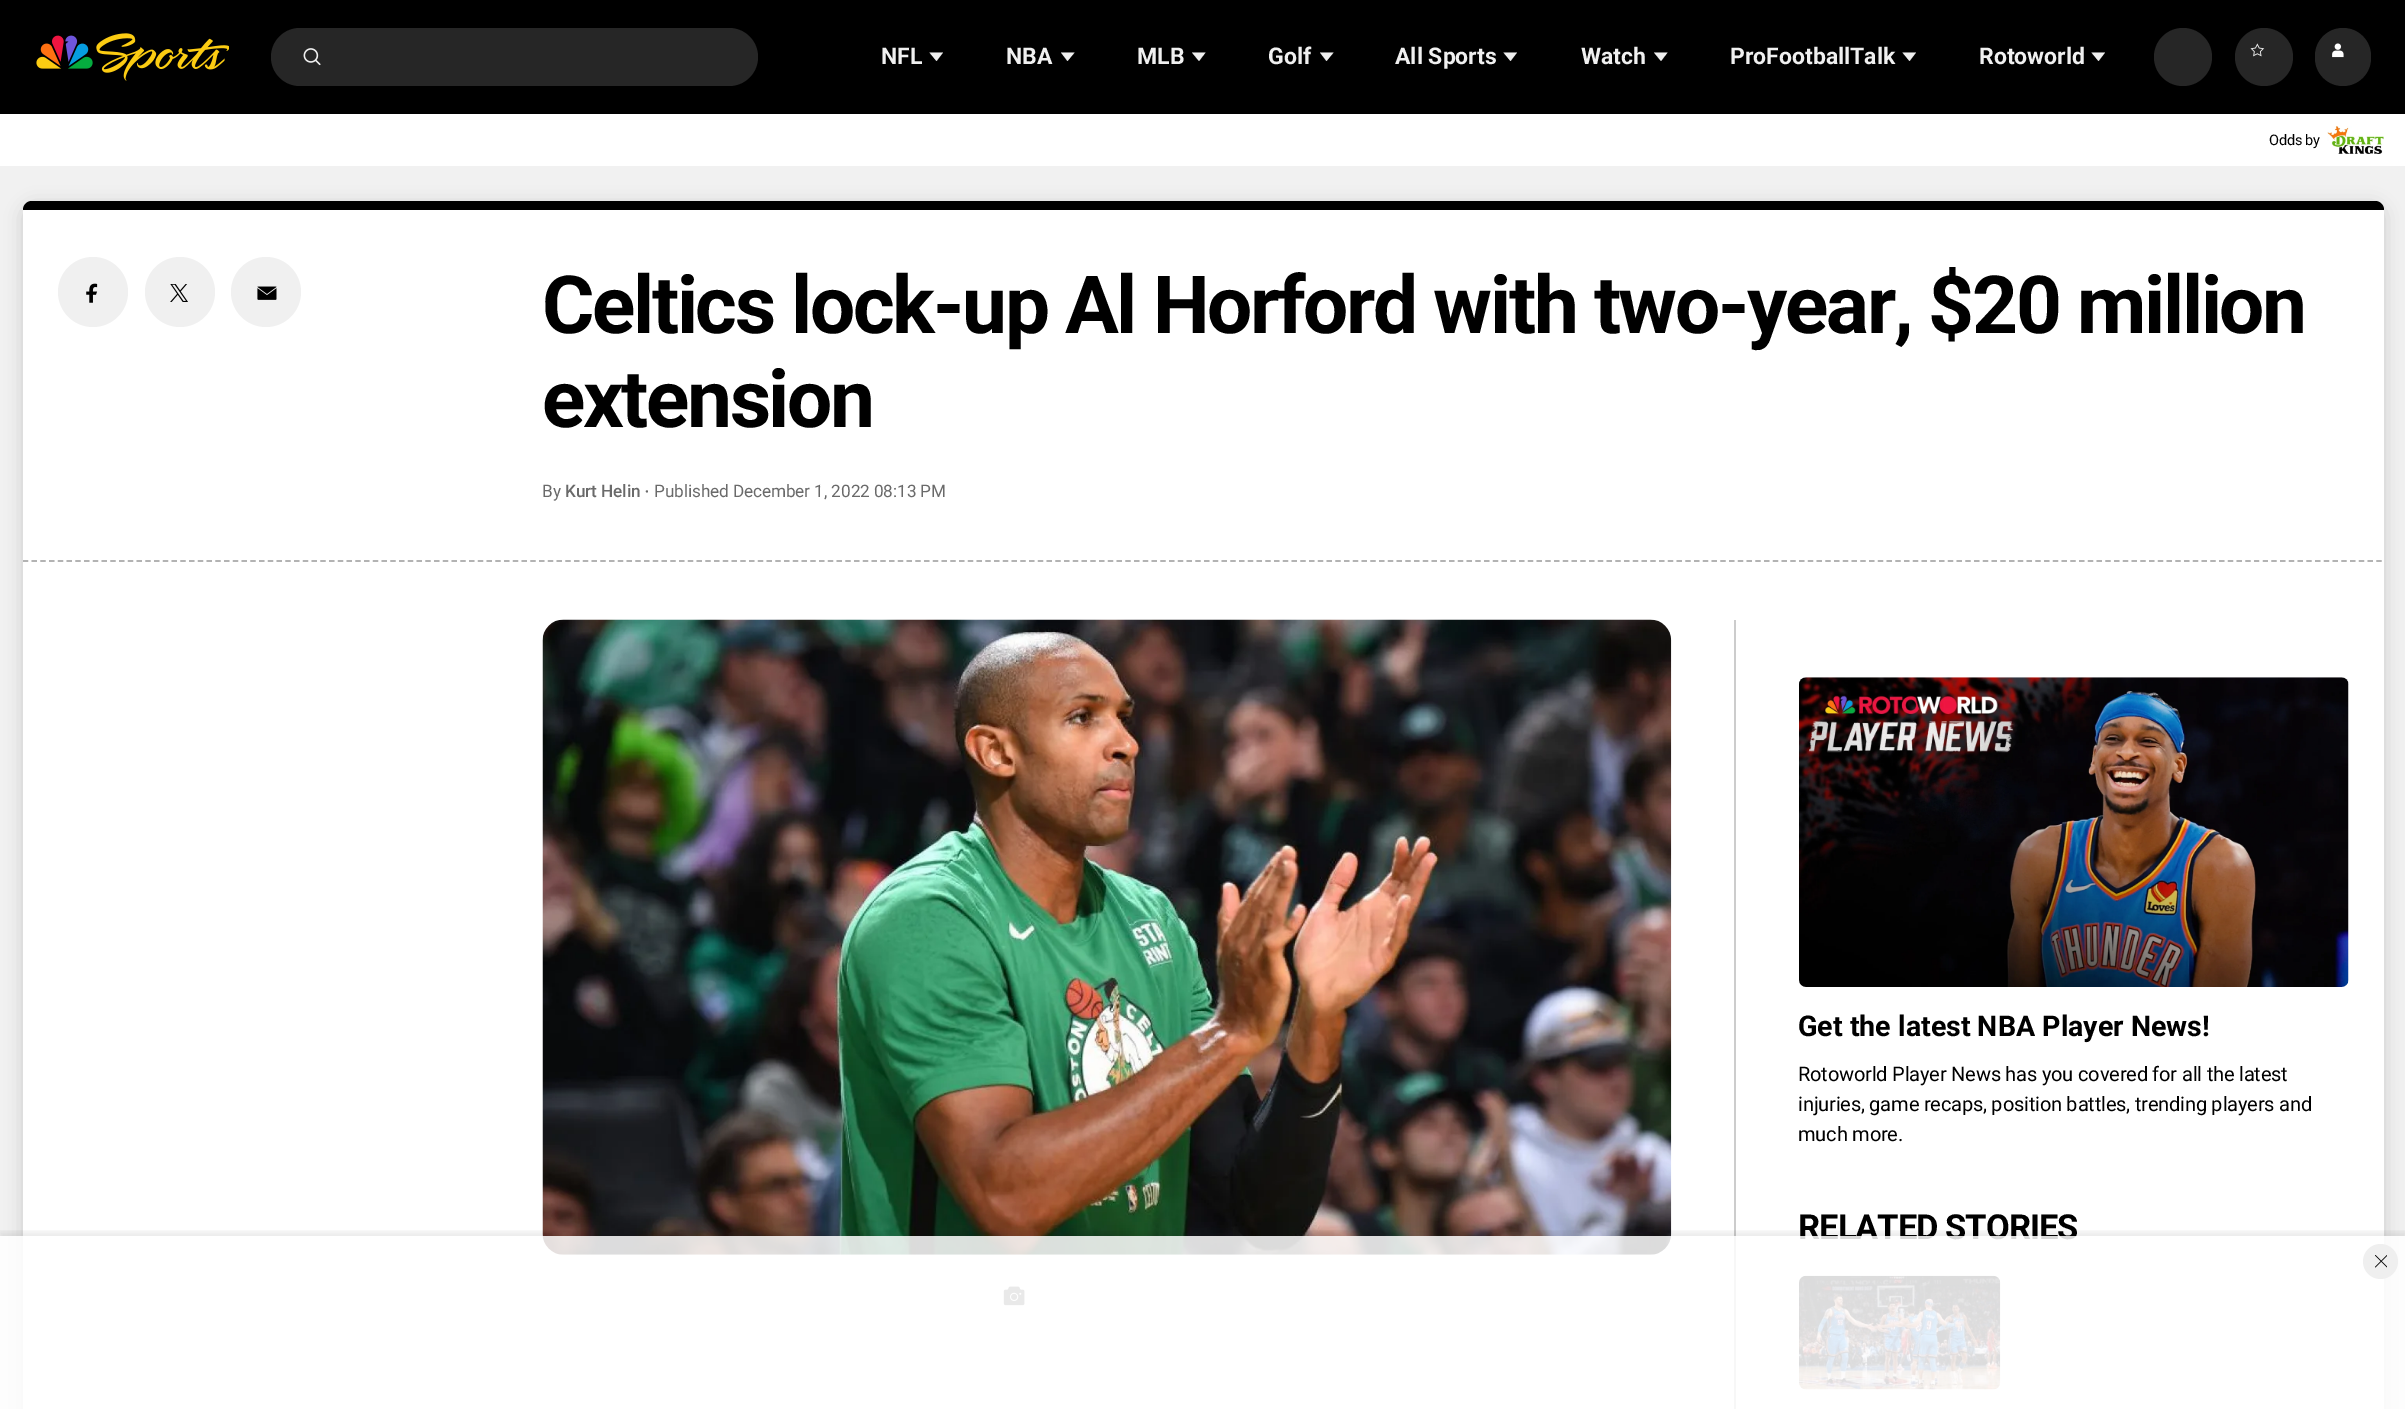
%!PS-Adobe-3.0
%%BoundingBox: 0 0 2405 1409
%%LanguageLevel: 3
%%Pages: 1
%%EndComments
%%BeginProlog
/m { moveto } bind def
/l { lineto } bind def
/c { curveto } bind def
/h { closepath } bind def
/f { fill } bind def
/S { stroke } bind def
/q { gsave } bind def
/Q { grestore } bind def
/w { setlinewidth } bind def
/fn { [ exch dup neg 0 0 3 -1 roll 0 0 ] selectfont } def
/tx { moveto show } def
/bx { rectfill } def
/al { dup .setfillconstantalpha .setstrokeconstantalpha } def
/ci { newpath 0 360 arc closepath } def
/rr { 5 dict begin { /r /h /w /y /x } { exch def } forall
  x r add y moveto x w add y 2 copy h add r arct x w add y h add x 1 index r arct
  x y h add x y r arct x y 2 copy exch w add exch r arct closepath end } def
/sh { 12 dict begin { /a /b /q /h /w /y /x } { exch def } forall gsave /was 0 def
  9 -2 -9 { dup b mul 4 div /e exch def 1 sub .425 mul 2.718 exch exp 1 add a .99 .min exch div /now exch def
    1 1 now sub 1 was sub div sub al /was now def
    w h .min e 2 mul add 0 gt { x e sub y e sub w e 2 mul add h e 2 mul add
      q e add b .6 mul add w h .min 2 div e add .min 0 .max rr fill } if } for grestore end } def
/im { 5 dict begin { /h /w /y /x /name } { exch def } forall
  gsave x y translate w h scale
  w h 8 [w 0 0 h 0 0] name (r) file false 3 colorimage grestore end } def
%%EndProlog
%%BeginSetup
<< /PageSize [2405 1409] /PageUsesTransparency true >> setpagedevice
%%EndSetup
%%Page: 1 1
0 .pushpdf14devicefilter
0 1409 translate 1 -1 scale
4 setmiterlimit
0.945 setgray
0 0 2405 1409 bx
0 setgray
0 0 2405 114 bx
(image0.raw) 36 33 193 48 im
0.149 setgray
271 28 487 58 29 rr f
(image1.raw) 303 48 18 18 im
/Roboto-Bold 23 fn
0.941 setgray
(NFL) 881 64 tx
936.5 61 m 929.5 52.5 l 943 52.5 l h f
(NBA) 1006 64 tx
1067.5 61 m 1061 52.5 l 1074.5 52.5 l h f
(MLB) 1137 64 tx
1199 61 m 1192 52.5 l 1205.5 52.5 l h f
(Golf) 1268 64 tx
1326.5 61 m 1320 52.5 l 1333.5 52.5 l h f
(All Sports) 1395 64 tx
1510.5 61 m 1503.5 52.5 l 1517 52.5 l h f
(Watch) 1581 64 tx
1661 61 m 1654 52.5 l 1667.5 52.5 l h f
(ProFootballTalk) 1730 64 tx
1909.5 61 m 1902.5 52.5 l 1916 52.5 l h f
(Rotoworld) 1979 64 tx
2098.5 61 m 2091.5 52.5 l 2105 52.5 l h f
0.149 setgray
2183 57 29 ci f
2264 57 29 ci f
(image2.raw) 2250 43 15 14 im
2315 28 56 58 28 rr f
(image3.raw) 2332 43 12 15 im
1 setgray
0 114 2405 52 bx
/Roboto-Regular 14.5 fn
0 setgray
2269 145 m -0.25 0 (Odds by) ashow
(image4.raw) 2327 126 57 28 im
23 205 2361 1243 12 9 0.15 sh
1 setgray
23 201 2361 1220 12 rr f
0 setgray
32 201 m 2375 201 l 2380 201 2384 205 2384 210 c 23 210 l 23 205 27 201 32 201 c h f
0.702 setgray
1.8 w
[5.25 3.5] 0 setdash
23 561 m 2383.5 561 l S
0.941 setgray
93 292 35 ci f
(image5.raw) 86 283 12 20 im
180 292 35 ci f
(image6.raw) 170 284 18 18 im
266 292 35 ci f
(image7.raw) 257 286 20 14 im
/Roboto-Bold 80.25 fn
0 setgray
542 333 m -2.4 0 (Celtics lock-up Al Horford with two-year, $20 million) ashow
542 427 m -2.4 0 (extension) ashow
/Roboto-Regular 17.2 fn
0.416 setgray
542 497 m -0.1 0 (By) ashow
/Roboto-Medium 17.2 fn
565 497 m -0.1 0 (Kurt Helin) ashow
646.9 491.4 1.1 ci f
/Roboto-Regular 17.2 fn
654 497 m -0.1 0 (Published December 1, 2022 08:13 PM) ashow
(image8.raw) 542 619 1130 636 im
(image9.raw) 1003 1286 22 20 im
0.8 setgray
1734 620 2 789 bx
(image10.raw) 1799 677 550 310 im
/Roboto-Bold 28.6 fn
0 setgray
(Get the latest NBA Player News!) 1798 1036 tx
/Roboto-Regular 20.05 fn
1798 1081 m -0.2 0 (Rotoworld Player News has you covered for all the latest) ashow
1798 1111 m -0.2 0 (injuries, game recaps, position battles, trending players and) ashow
1798 1141 m -0.2 0 (much more.) ashow
/Roboto-Bold 34.5 fn
1798 1239 m -1 0 (RELATED STORIES) ashow
(image11.raw) 1799 1275 202 115 im
q
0 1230 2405 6 rectclip
0 1232 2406 175 0 3.5 0.08 sh
Q
0.85 al
1 setgray
0 1236 2405 173 bx
1 al
0.937 setgray
2380.5 1261.5 17.5 ci f
(image12.raw) 2375 1255 12 13 im
.poppdf14devicefilter showpage
%%EOF
